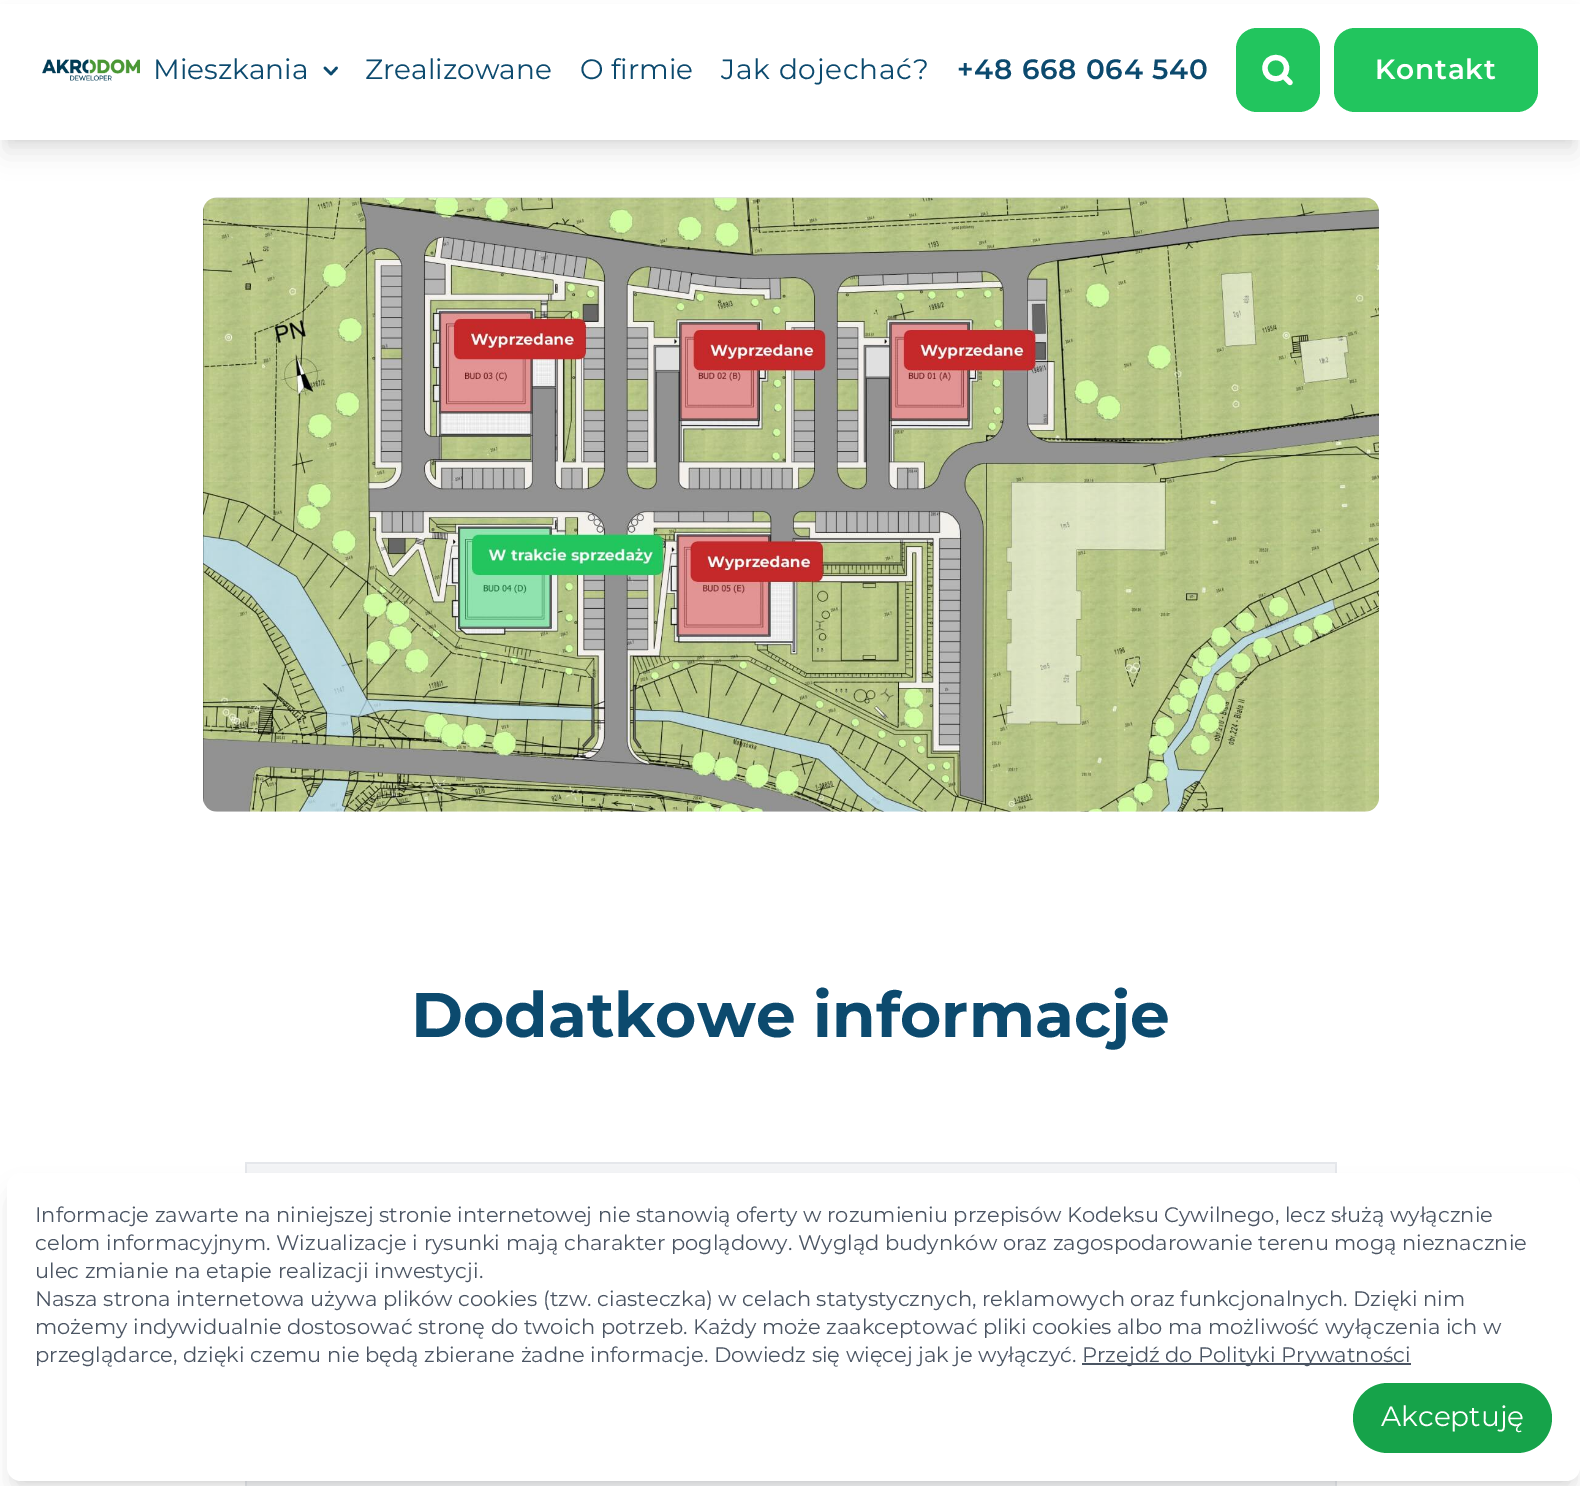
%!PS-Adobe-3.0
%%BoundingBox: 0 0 1580 1486
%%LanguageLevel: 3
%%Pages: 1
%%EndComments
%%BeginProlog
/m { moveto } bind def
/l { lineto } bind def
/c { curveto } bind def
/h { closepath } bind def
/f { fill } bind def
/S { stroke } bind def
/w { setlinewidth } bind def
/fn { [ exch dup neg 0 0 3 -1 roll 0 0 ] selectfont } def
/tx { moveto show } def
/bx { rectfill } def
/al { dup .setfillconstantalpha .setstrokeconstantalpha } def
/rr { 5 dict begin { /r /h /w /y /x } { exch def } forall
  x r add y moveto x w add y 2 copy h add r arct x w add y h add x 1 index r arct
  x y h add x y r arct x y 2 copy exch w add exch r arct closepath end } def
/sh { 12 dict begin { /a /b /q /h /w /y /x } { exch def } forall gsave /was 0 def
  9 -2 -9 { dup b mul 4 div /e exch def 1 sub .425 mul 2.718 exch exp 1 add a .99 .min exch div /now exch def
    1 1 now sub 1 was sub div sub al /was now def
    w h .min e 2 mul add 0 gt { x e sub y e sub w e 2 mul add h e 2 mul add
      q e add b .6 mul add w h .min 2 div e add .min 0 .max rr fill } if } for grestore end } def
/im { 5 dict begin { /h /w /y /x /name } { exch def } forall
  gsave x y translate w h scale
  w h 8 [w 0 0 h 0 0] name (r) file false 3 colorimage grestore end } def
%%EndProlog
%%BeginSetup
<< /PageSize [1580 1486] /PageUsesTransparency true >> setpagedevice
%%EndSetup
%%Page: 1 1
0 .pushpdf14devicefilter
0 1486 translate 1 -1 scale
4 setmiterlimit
1 setgray
0 0 1580 1486 bx
0 setgray
7 14 1566 126 0 5 0.1 sh
5 23 1570 129 0 13 0.1 sh
1 setgray
0 4 1580 136 bx
(image0.raw) 42 59 98 22 im
/Montserrat-Regular 28 fn
0.047 0.29 0.431 setrgbcolor
(Mieszkania) 153 79 tx
2.6 w
1 setlinecap
1 setlinejoin
336.5 68 m 331 74 l 325 68 l S
(Zrealizowane) 365 79 tx
(O firmie) 580 79 tx
721 79 m 0.75 0 (Jak dojechać?) ashow
/Montserrat-SemiBold 28 fn
957 79 m 0.75 0 (+48 668 064 540) ashow
0.133 0.773 0.369 setrgbcolor
1236 28 84 84 21 rr f
1 setgray
5.2 w
1290 82.5 m 1283.5 76 l 1265 68 m 1265 54 1286.5 54 1286.5 68 c 1286.5 82.5 1265 82.5 1265 68 c h S
0.133 0.773 0.369 setrgbcolor
1334 28 204 84 21 rr f
1 setgray
1375 79 m 0.75 0 (Kontakt) ashow
(image1.raw) 203 197 1176 615 im
/Montserrat-Bold 63 fn
0.047 0.29 0.431 setrgbcolor
(Dodatkowe informacje) 411 1037 tx
0.953 0.957 0.965 setrgbcolor
247 1164 1088 9 bx
0.898 0.906 0.922 setrgbcolor
245 1162 1092 2 bx
1335 1162 2 11 bx
245 1162 2 11 bx
0.953 0.957 0.965 setrgbcolor
247 1481 1088 5 bx
0.898 0.906 0.922 setrgbcolor
1335 1481 2 5 bx
245 1481 2 5 bx
0 setgray
14 1187 1559 294 7 5 0.1 sh
12 1195 1563 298 9 13 0.1 sh
1 setgray
7 1173 1573 308 14 rr f
/Montserrat-Regular 21 fn
0.294 0.333 0.388 setrgbcolor
(Informacje zawarte na niniejszej stronie internetowej nie stanowią oferty w rozumieniu przepisów Kodeksu Cywilnego, lecz służą wyłącznie) 35 1222 tx
(celom informacyjnym. Wizualizacje i rysunki mają charakter poglądowy. Wygląd budynków oraz zagospodarowanie terenu mogą nieznacznie) 35 1250 tx
(ulec zmianie na etapie realizacji inwestycji.) 35 1278 tx
(Nasza strona internetowa używa plików cookies \(tzw. ciasteczka\) w celach statystycznych, reklamowych oraz funkcjonalnych. Dzięki nim) 35 1306 tx
(możemy indywidualnie dostosować stronę do twoich potrzeb. Każdy może zaakceptować pliki cookies albo ma możliwość wyłączenia ich w) 35 1334 tx
(przeglądarce, dzięki czemu nie będą zbierane żadne informacje. Dowiedz się więcej jak je wyłączyć.) 35 1362 tx
1082 1363 329 2 bx
(Przejdź do Polityki Prywatności) 1082 1362 tx
0.086 0.639 0.29 setrgbcolor
1353 1383 199 70 35 rr f
/Montserrat-Regular 28 fn
1 setgray
(Akceptuję) 1381 1426 tx
.poppdf14devicefilter showpage
%%EOF
